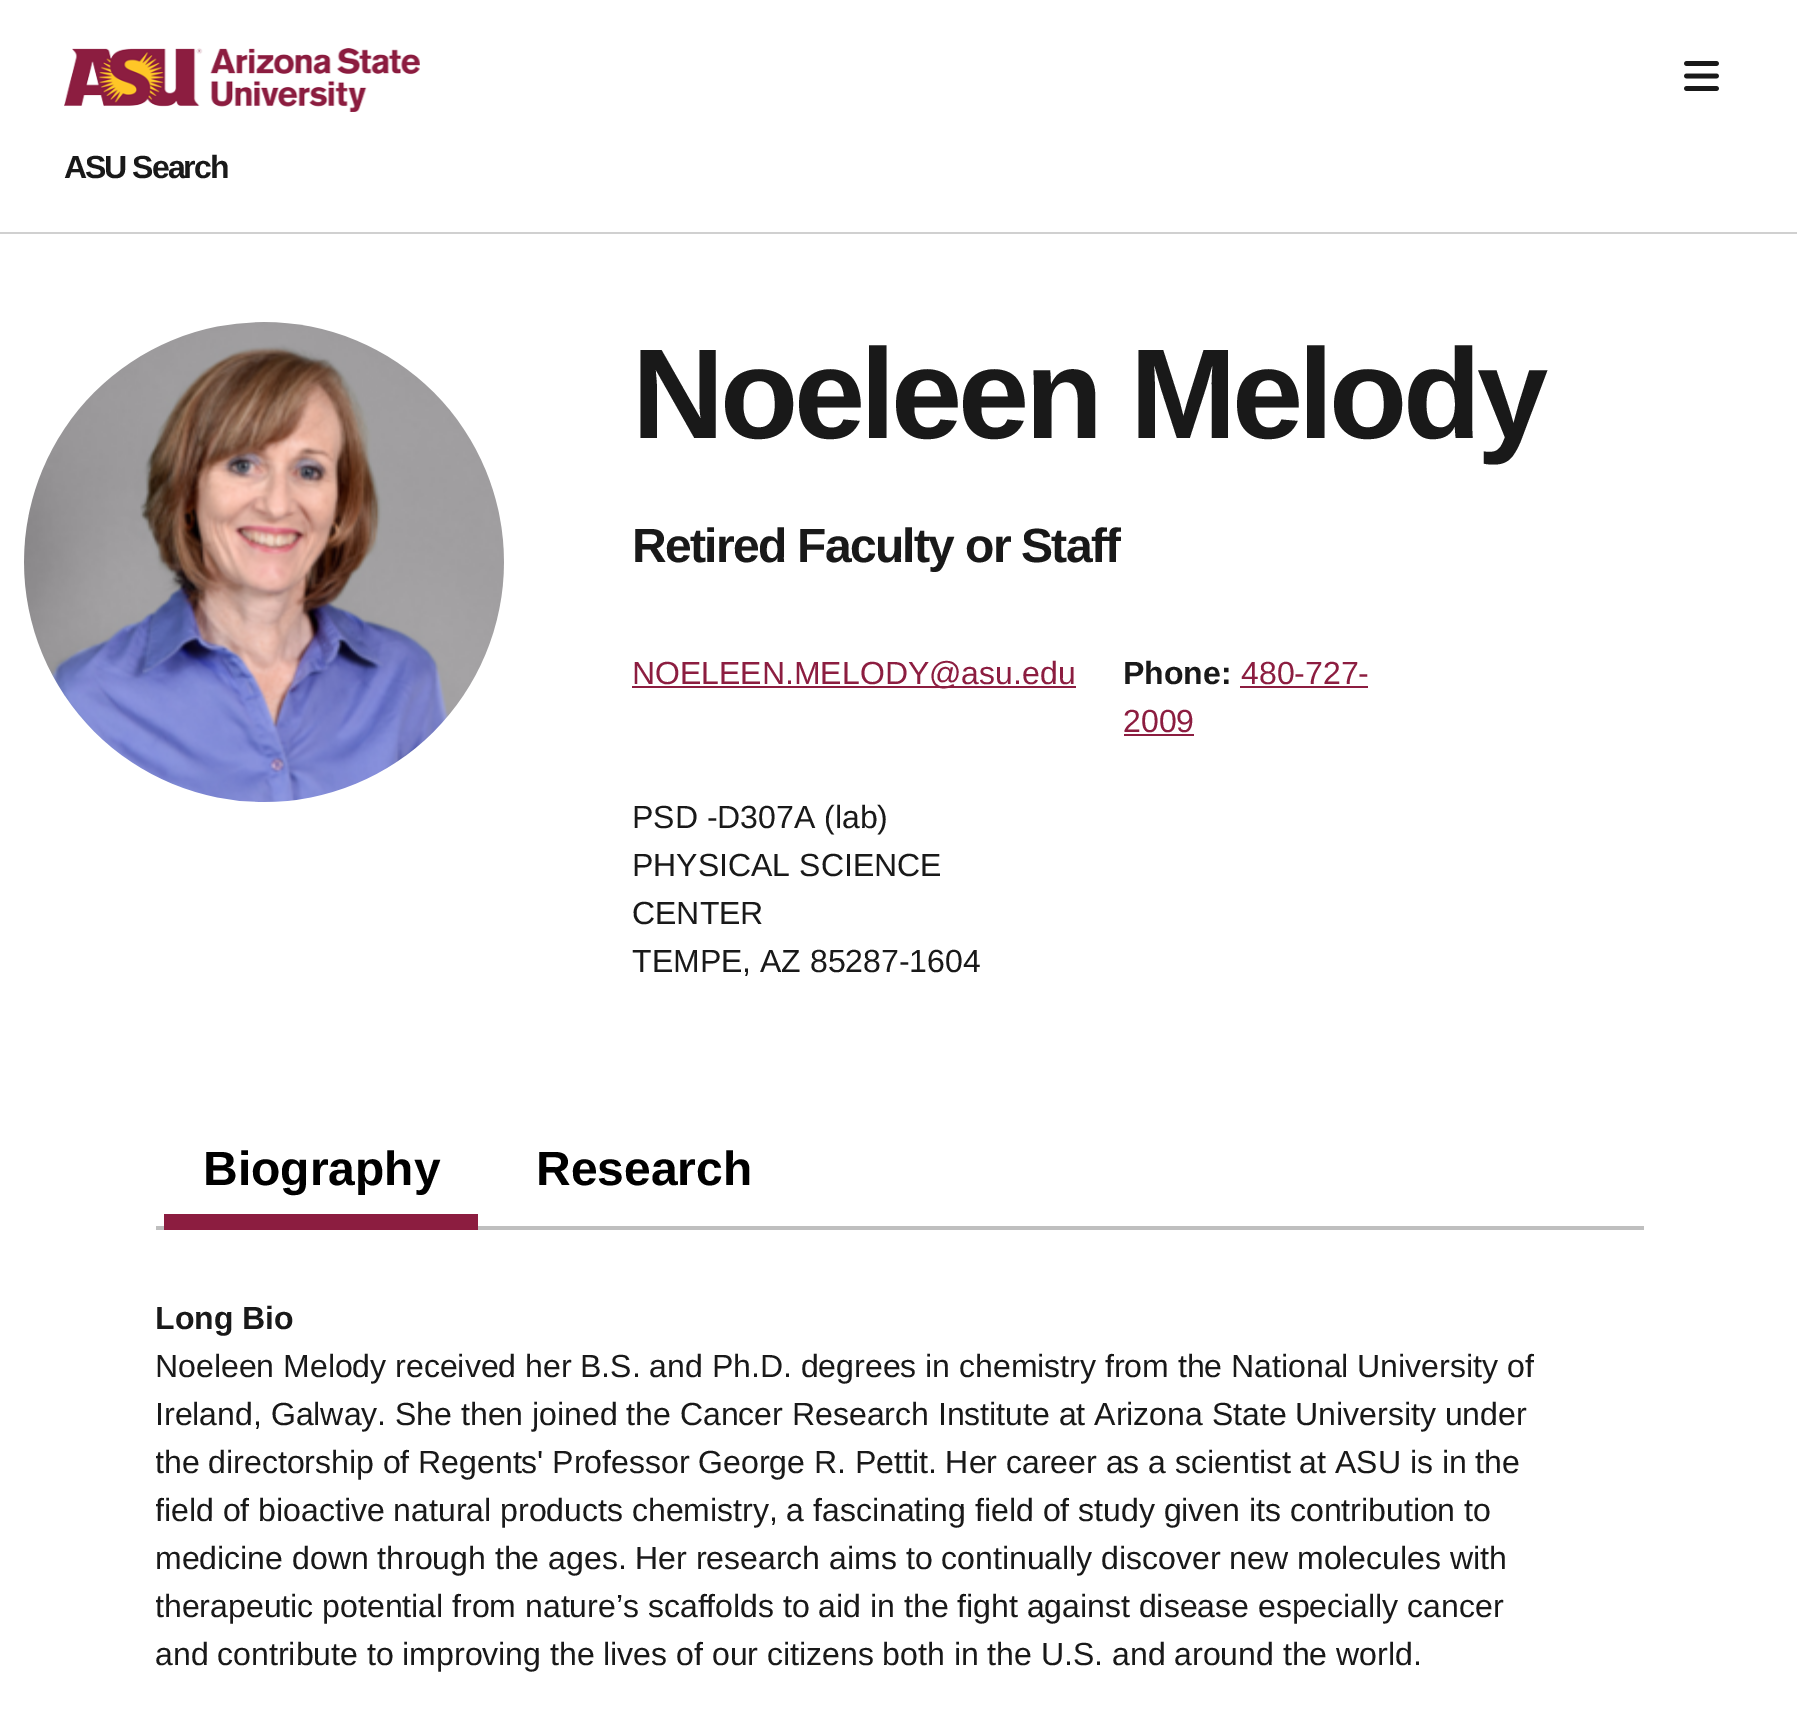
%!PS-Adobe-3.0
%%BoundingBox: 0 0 1797 1734
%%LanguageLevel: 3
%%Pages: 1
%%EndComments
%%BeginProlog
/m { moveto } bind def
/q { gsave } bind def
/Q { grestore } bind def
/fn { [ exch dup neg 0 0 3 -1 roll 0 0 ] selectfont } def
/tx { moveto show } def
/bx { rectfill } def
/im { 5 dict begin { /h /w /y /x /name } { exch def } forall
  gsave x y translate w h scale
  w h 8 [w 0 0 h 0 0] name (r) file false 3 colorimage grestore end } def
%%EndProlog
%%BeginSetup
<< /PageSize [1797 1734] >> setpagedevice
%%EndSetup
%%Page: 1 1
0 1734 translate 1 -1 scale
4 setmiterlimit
1 setgray
0 0 1797 1734 bx
0.816 setgray
0 232 1797 2 bx
(image0.raw) 64 48 356 64 im
(image1.raw) 1684 61 35 30 im
/LiberationSans-Bold 32 fn
0.098 setgray
64 178 m -2 0 (ASU Search) ashow
(image2.raw) 24 322 480 480 im
/LiberationSans-Bold 128 fn
632 438 m -4.5 0 (Noeleen Melody) ashow
/LiberationSans-Bold 48 fn
632 562 m -1.7 0 (Retired Faculty or Staff) ashow
0.549 0.114 0.251 setrgbcolor
632 686 444 2 bx
/LiberationSans-Regular 32 fn
(NOELEEN.MELODY@asu.edu) 632 684 tx
/LiberationSans-Bold 32 fn
0.098 setgray
(Phone:) 1123 684 tx
/LiberationSans-Regular 32 fn
0.549 0.114 0.251 setrgbcolor
(480-727-) 1241 684 tx
1240 686 128 2 bx
(2009) 1123 732 tx
1124 734 70 2 bx
0.098 setgray
(PSD -D307A \(lab\)) 632 828 tx
(PHYSICAL SCIENCE) 632 876 tx
(CENTER) 632 924 tx
(TEMPE, AZ 85287-1604) 632 972 tx
0.749 setgray
156 1226 1488 4 bx
0.549 0.114 0.251 setrgbcolor
164 1214 314 16 bx
/LiberationSans-Bold 48 fn
0 setgray
(Biography) 203 1185 tx
(Research) 536 1185 tx
/LiberationSans-Bold 32 fn
0.098 setgray
(Long Bio) 155 1329 tx
/LiberationSans-Regular 32 fn
(Noeleen Melody received her B.S. and Ph.D. degrees in chemistry from the National University of) 155 1377 tx
(Ireland, Galway. She then joined the Cancer Research Institute at Arizona State University under) 155 1425 tx
q
156 1230 1488 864 rectclip
(the directorship of Regents' Professor George R. Pettit. Her career as a scientist at ASU is in the) 155 1473 tx
(field of bioactive natural products chemistry, a fascinating field of study given its contribution to) 155 1521 tx
Q
(medicine down through the ages. Her research aims to continually discover new molecules with) 155 1569 tx
q
156 1230 1488 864 rectclip
(therapeutic potential from nature’s scaffolds to aid in the fight against disease especially cancer) 155 1617 tx
Q
(and contribute to improving the lives of our citizens both in the U.S. and around the world.) 155 1665 tx
showpage
%%EOF
